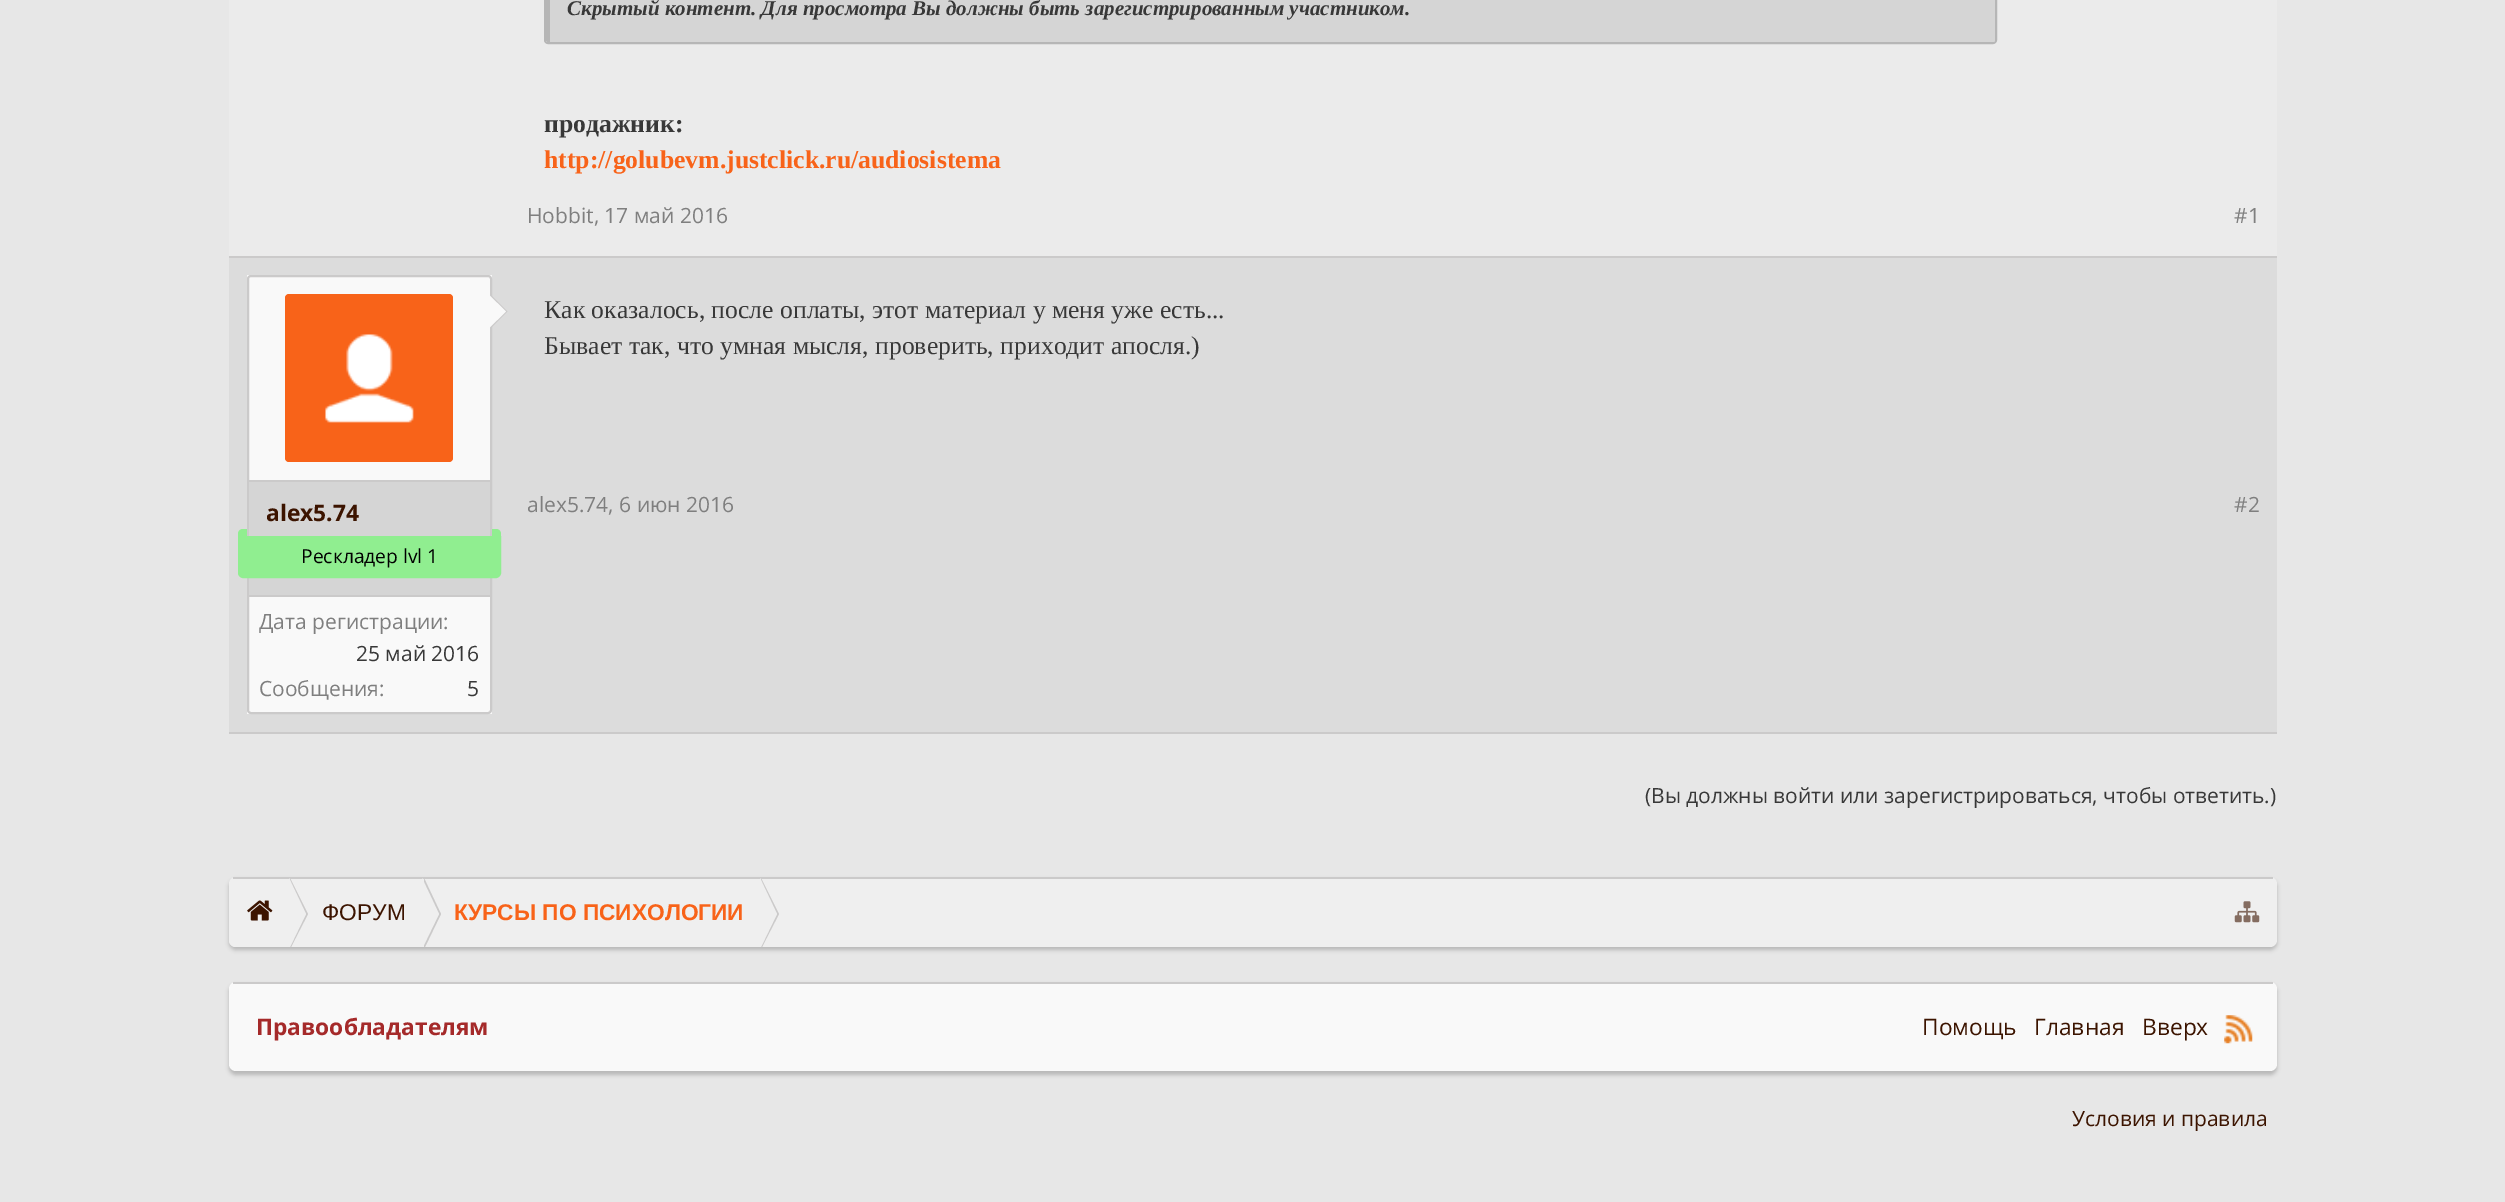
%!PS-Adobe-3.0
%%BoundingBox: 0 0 2505 1202
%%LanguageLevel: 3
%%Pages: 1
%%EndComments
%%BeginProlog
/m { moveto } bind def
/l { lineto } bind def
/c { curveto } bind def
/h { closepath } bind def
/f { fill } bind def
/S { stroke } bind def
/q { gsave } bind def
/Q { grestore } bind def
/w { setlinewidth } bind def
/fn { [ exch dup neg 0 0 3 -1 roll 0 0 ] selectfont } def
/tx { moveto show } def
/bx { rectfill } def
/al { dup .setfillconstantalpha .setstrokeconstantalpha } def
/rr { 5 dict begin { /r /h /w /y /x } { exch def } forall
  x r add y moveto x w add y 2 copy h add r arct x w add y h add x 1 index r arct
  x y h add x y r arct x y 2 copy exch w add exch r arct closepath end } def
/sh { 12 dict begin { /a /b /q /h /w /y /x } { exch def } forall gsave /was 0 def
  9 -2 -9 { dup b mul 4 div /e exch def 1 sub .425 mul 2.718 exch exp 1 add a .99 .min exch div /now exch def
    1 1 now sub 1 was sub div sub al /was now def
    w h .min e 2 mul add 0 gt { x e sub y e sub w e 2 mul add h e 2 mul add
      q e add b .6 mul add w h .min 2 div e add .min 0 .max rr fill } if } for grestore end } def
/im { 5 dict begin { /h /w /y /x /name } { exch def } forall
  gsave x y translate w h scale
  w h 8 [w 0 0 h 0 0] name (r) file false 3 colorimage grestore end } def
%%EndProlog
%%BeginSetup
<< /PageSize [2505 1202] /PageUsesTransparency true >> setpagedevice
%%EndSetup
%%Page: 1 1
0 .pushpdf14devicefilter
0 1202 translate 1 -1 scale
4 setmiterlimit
0.906 setgray
0 0 2505 1202 bx
0.922 setgray
229 0 2048 256 bx
0.714 setgray
2 w
545 -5 1451 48 3 rr S
0.835 setgray
546 -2 1449 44 2 rr f
0.714 setgray
548 -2 m 550 -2 l 550 42 l 548 42 l 547 42 546 41 546 40 c 546 0 l 546 -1 547 -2 548 -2 c h f
/LiberationSerif-BoldItalic 21 fn
0.22 setgray
(Скрытый контент. Для просмотра Вы должны быть зарегистрированным участником.) 567 15 tx
/LiberationSerif-Bold 25.7 fn
(продажник:) 544 132 tx
0.973 0.388 0.098 setrgbcolor
(http://golubevm.justclick.ru/audiosistema) 544 168 tx
/OpenSans-Regular 21 fn
0.498 setgray
(Hobbit, 17 май 2016) 527 223 tx
(#1) 2234 223 tx
0.863 setgray
229 258 2048 474 bx
0.796 0.792 0.792 setrgbcolor
229 256 2048 2 bx
229 732 2048 2 bx
/LiberationSerif-Regular 25.7 fn
0.22 setgray
(Как оказалось, после оплаты, этот материал у меня уже есть...) 544 318 tx
(Бывает так, что умная мысля, проверить, приходит апосля.\)) 544 354 tx
/OpenSans-Regular 21 fn
0.498 setgray
(alex5.74, 6 июн 2016) 527 512 tx
(#2) 2234 512 tx
0.976 setgray
247 275 245 439 bx
0.796 0.792 0.792 setrgbcolor
248 276 243 437 3 rr S
0.973 0.388 0.098 setrgbcolor
285 294 168 168 4 rr f
(image0.raw) 325 334 89 89 im
0.796 0.792 0.792 setrgbcolor
490 329 m 490 294 l 507.5 311.5 l h f
0.976 setgray
488 329 m 488 294 l 506 311.5 l h f
0.835 setgray
249 482 241 113 bx
0.796 0.792 0.792 setrgbcolor
249 480 241 2 bx
/OpenSans-Bold 22.75 fn
0.235 0.078 0 setrgbcolor
(alex5.74) 266 521 tx
0.565 0.933 0.565 setrgbcolor
239 537 m 500 537 l 500 573 l 500 575 498 577 496 577 c 243 577 l 241 577 239 575 239 573 c h q f Q
S
243 529 m 247 529 l 247 536 l 238 536 l 238 534 l 238 531 240 529 243 529 c h f
492 529 m 496 529 l 499 529 501 531 501 534 c 501 536 l 492 536 l h f
/OpenSans-Regular 19.25 fn
0 setgray
(Рескладер lvl 1) 301 563 tx
0.796 0.792 0.792 setrgbcolor
249 595 241 2 bx
/OpenSans-Regular 21 fn
0.498 setgray
(Дата регистрации:) 259 629 tx
0.22 setgray
(25 май 2016) 356 661 tx
0.498 setgray
(Сообщения:) 259 696 tx
0.22 setgray
(5) 467 696 tx
(\(Вы должны войти или зарегистрироваться, чтобы ответить.\)) 1645 803 tx
0 setgray
229 880 2048 70 7 2 0.2 sh
0.937 setgray
229 877 2048 70 7 rr f
0.796 0.792 0.792 setrgbcolor
233 877 2040 2 bx
0.937 setgray
236 879 m 291 879 l 291 947 l 236 947 l 232 947 229 944 229 940 c 229 884 l 230 881 233 879 236 879 c h f
(image1.raw) 247 900 26 21 im
0.796 0.792 0.792 setrgbcolor
290 878 m 308 914 l 291 947 l 290 947 l h f
0.937 setgray
289 878 m 306 914 l 290 947 l 289 947 l h f
/LiberationSans-Regular 22.75 fn
0.235 0.078 0 setrgbcolor
(ФОРУМ) 322 920 tx
0.796 0.792 0.792 setrgbcolor
424 878 m 441 914 l 425 947 l 424 947 l h f
0.937 setgray
422 878 m 439 914 l 423 947 l 422 947 l h f
/LiberationSans-Bold 22.75 fn
0.973 0.388 0.098 setrgbcolor
(КУРСЫ ПО ПСИХОЛОГИИ) 454 920 tx
0.796 0.792 0.792 setrgbcolor
761 878 m 779 914 l 762 947 l 761 947 l h f
0.937 setgray
760 878 m 777 914 l 761 947 l 760 947 l h f
(image2.raw) 2234 901 26 22 im
0 setgray
229 985 2048 90 7 2 0.2 sh
0.976 setgray
229 982 2048 89 7 rr f
0.796 0.792 0.792 setrgbcolor
233 982 2040 2 bx
/OpenSans-Bold 22.75 fn
0.647 0.165 0.165 setrgbcolor
(Правообладателям) 256 1035 tx
/OpenSans-Regular 22.75 fn
0.235 0.078 0 setrgbcolor
(Помощь) 1922 1035 tx
(Главная) 2034 1035 tx
(Вверх) 2142 1035 tx
(image3.raw) 2224 1015 29 29 im
/OpenSans-Regular 21 fn
(Условия и правила) 2072 1126 tx
.poppdf14devicefilter showpage
%%EOF
